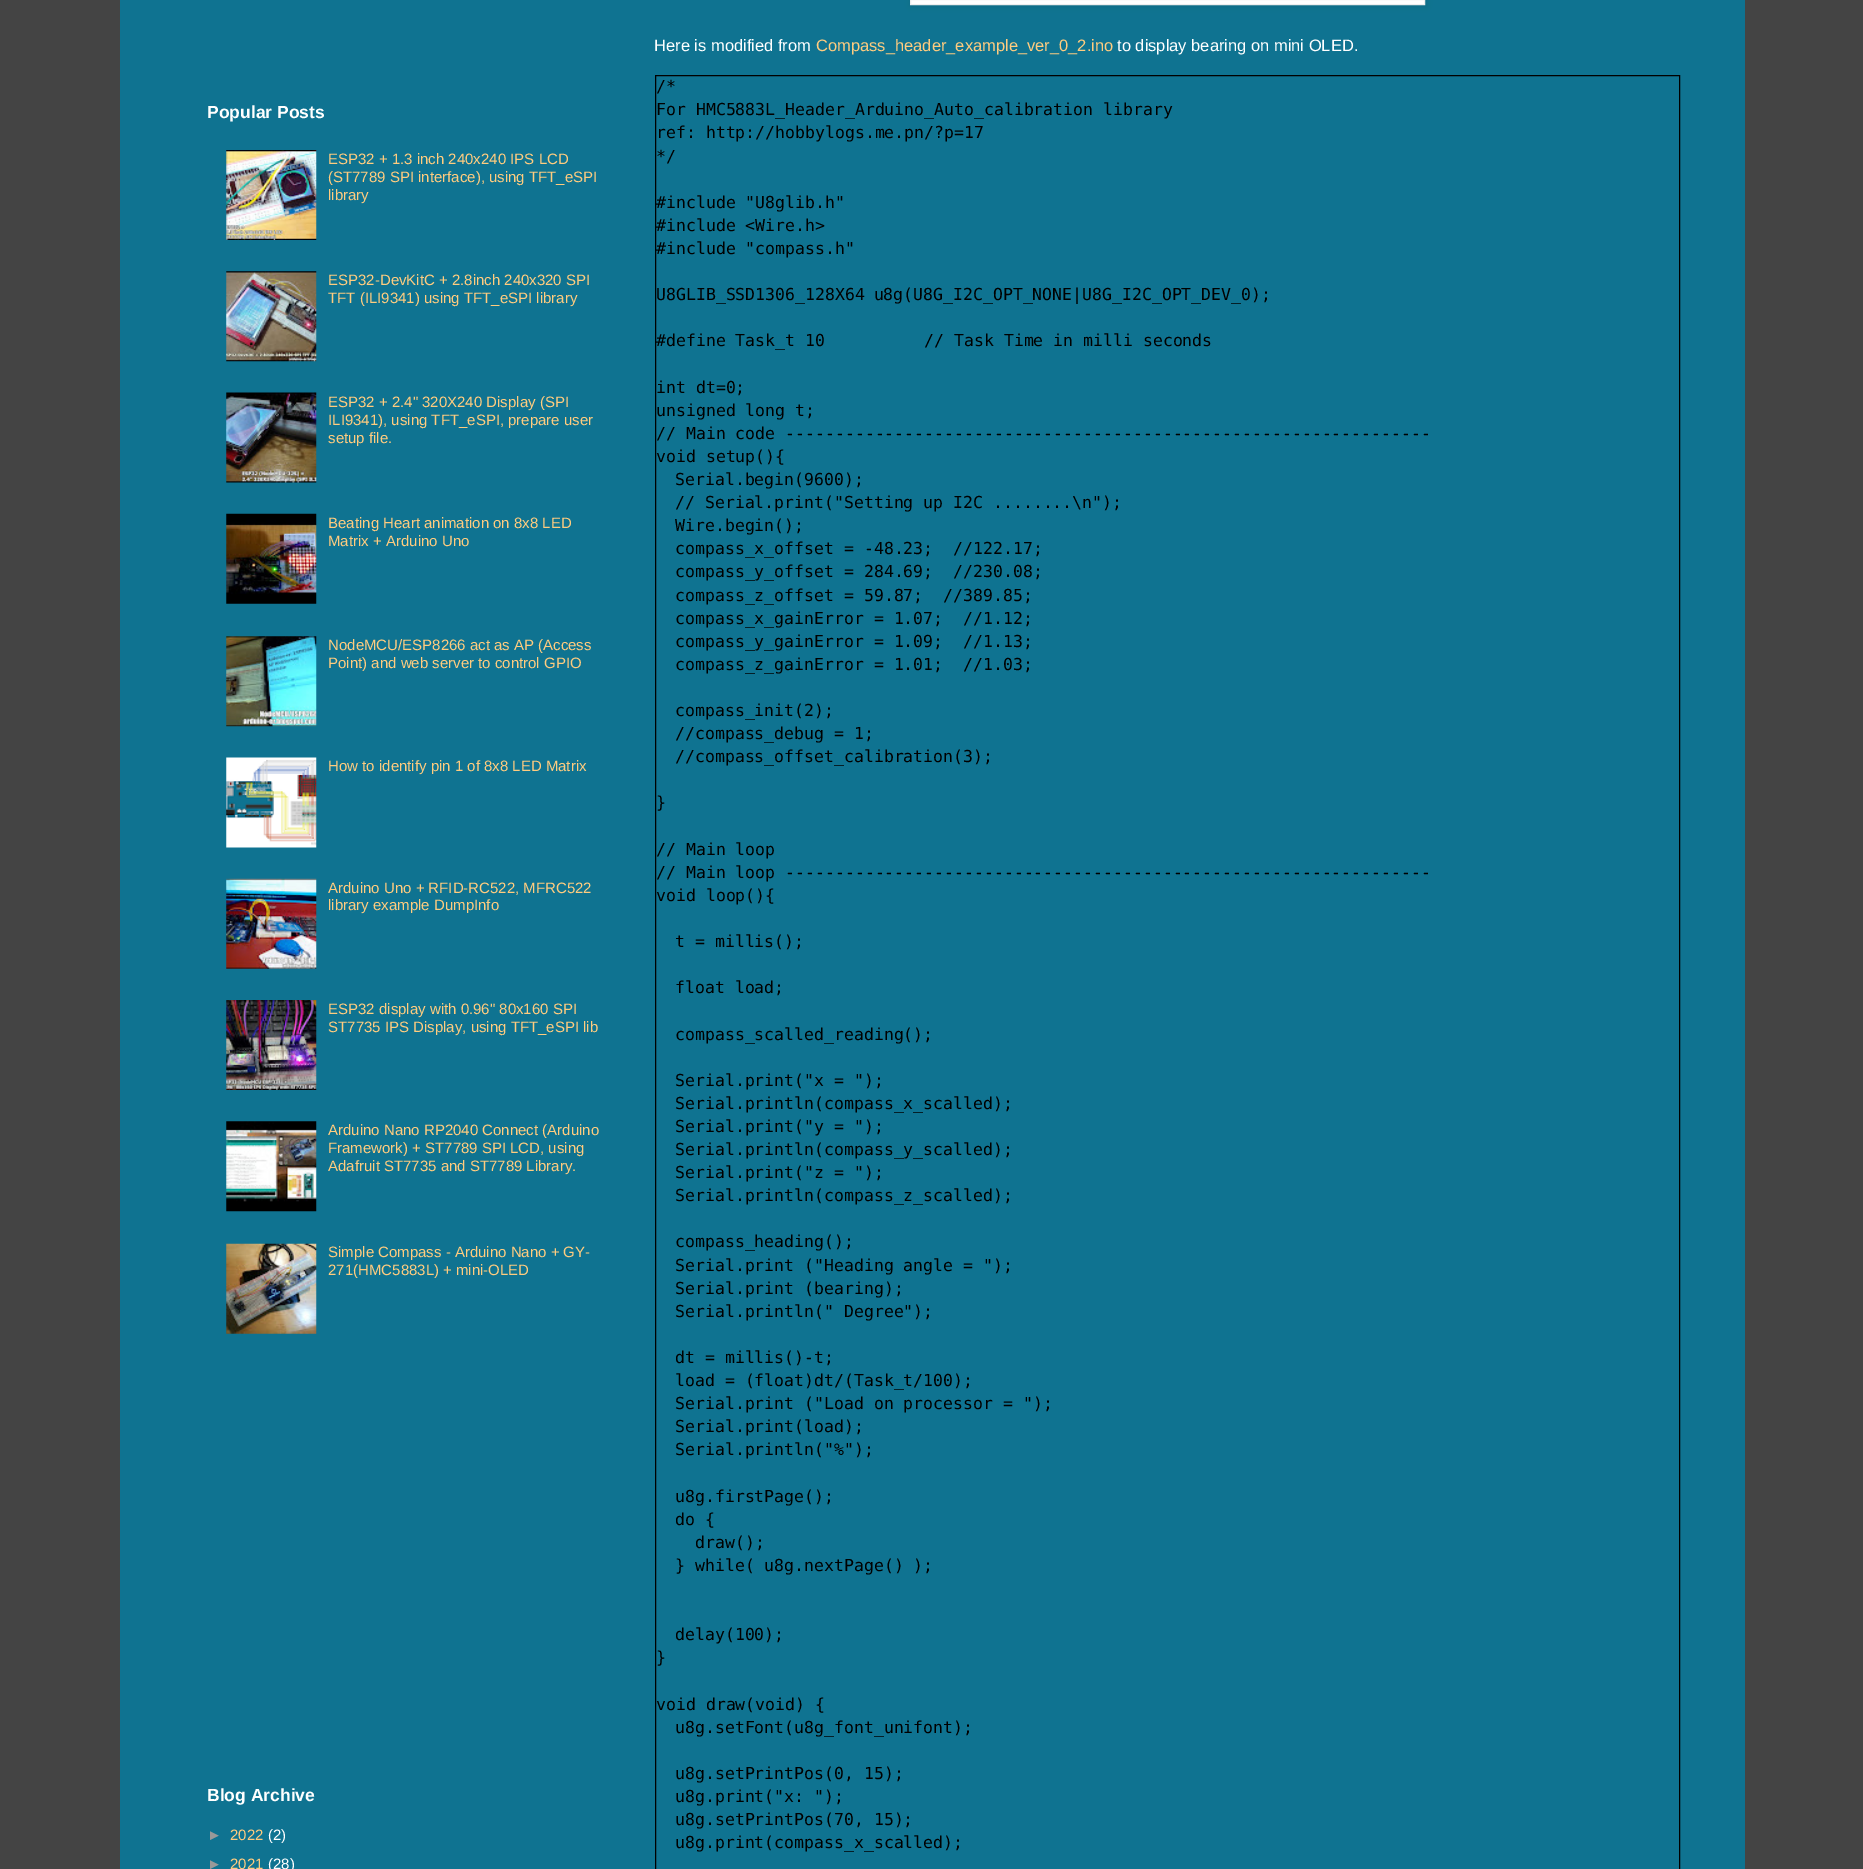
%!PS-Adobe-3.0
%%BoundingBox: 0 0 1863 1869
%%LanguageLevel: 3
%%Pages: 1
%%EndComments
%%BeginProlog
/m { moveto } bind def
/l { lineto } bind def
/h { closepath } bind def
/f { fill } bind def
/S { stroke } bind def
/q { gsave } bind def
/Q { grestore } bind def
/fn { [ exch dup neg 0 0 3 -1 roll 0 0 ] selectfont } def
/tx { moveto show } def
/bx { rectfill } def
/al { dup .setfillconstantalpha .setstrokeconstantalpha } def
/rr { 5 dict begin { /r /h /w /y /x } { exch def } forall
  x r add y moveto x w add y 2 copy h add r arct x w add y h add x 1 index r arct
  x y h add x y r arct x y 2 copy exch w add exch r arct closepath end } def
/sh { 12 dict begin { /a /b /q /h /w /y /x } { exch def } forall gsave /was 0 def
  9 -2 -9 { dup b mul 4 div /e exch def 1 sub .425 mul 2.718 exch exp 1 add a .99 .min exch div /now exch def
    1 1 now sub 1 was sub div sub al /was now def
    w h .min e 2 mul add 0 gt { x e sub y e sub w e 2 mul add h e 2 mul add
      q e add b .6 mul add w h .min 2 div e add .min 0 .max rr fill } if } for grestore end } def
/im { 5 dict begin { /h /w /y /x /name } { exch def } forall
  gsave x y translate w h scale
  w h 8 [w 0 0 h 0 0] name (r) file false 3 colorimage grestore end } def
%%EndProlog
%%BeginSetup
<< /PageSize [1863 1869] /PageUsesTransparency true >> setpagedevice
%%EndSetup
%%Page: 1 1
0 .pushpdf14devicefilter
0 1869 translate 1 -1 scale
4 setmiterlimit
0.267 setgray
0 0 1863 1869 bx
0.059 0.451 0.569 setrgbcolor
120 0 1625 1869 bx
/LiberationSans-Bold 17.5 fn
1 setgray
(Popular Posts) 207 118 tx
(image0.raw) 226 150 91 90 im
/LiberationSans-Regular 15 fn
1 0.8 0.498 setrgbcolor
(ESP32 + 1.3 inch 240x240 IPS LCD) 328 164 tx
(\(ST7789 SPI interface\), using TFT_eSPI) 328 182 tx
(library) 328 200 tx
(image1.raw) 226 271 91 91 im
(ESP32-DevKitC + 2.8inch 240x320 SPI) 328 285 tx
(TFT \(ILI9341\) using TFT_eSPI library) 328 303 tx
(image2.raw) 226 392 91 91 im
(ESP32 + 2.4" 320X240 Display \(SPI) 328 407 tx
(ILI9341\), using TFT_eSPI, prepare user) 328 425 tx
(setup file.) 328 443 tx
(image3.raw) 226 513 91 91 im
(Beating Heart animation on 8x8 LED) 328 528 tx
(Matrix + Arduino Uno) 328 546 tx
(image4.raw) 226 636 91 91 im
(NodeMCU/ESP8266 act as AP \(Access) 328 650 tx
(Point\) and web server to control GPIO) 328 668 tx
(image5.raw) 226 757 91 91 im
(How to identify pin 1 of 8x8 LED Matrix) 328 771 tx
(image6.raw) 226 878 91 91 im
(Arduino Uno + RFID-RC522, MFRC522) 328 893 tx
(library example DumpInfo) 328 910 tx
(image7.raw) 226 1000 91 90 im
(ESP32 display with 0.96" 80x160 SPI) 328 1014 tx
(ST7735 IPS Display, using TFT_eSPI lib) 328 1032 tx
(image8.raw) 226 1121 91 91 im
(Arduino Nano RP2040 Connect \(Arduino) 328 1135 tx
(Framework\) + ST7789 SPI LCD, using) 328 1153 tx
(Adafruit ST7735 and ST7789 Library.) 328 1171 tx
(image9.raw) 226 1243 91 91 im
(Simple Compass - Arduino Nano + GY-) 328 1257 tx
(271\(HMC5883L\) + mini-OLED) 328 1275 tx
/LiberationSans-Bold 17.5 fn
1 setgray
(Blog Archive) 207 1801 tx
/LiberationSans-Regular 15 fn
0.6 setgray
(►) 207 1840 tx
1 0.8 0.498 setrgbcolor
(2022) 230 1840 tx
1 setgray
(\(2\)) 268 1840 tx
0.6 setgray
(►) 207 1869 tx
1 0.8 0.498 setrgbcolor
(2021) 230 1869 tx
1 setgray
(\(28\)) 268 1869 tx
0 setgray
911 -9 515 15 0 3 0.1 sh
1 setgray
910.5 -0.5 m 1424.5 -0.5 l 1424.5 4.5 l 910.5 4.5 l h q f Q
0.933 setgray
S
/LiberationSans-Regular 16.5 fn
1 setgray
(Here is modified from) 654 51 tx
1 0.8 0.498 setrgbcolor
(Compass_header_example_ver_0_2.ino) 816 51 tx
1 setgray
(to display bearing on mini OLED.) 1117 51 tx
0 setgray
655.5 75.5 1024 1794 rectstroke
/DejaVuSansMono-Regular 16.5 fn
(/*) 656 92 tx
(For HMC5883L_Header_Arduino_Auto_calibration library) 656 115 tx
(ref: http://hobbylogs.me.pn/?p=17) 656 138 tx
(*/) 656 162 tx
(#include "U8glib.h") 656 208 tx
(#include <Wire.h>) 656 231 tx
(#include "compass.h") 656 254 tx
656 300 m -1 0 32 (U8GLIB_SSD1306_128X64 u8g\(U8G_I2C_OPT_NONE|U8G_I2C_OPT_DEV_0\);) widthshow
(#define Task_t 10          // Task Time in milli seconds) 656 346 tx
(int dt=0;) 656 393 tx
(unsigned long t;) 656 416 tx
(// Main code -----------------------------------------------------------------) 656 439 tx
(void setup\(\){) 656 462 tx
(Serial.begin\(9600\);) 675 485 tx
(// Serial.print\("Setting up I2C ........\\n"\);) 675 508 tx
(Wire.begin\(\);) 675 531 tx
(compass_x_offset = -48.23;  //122.17;) 675 554 tx
(compass_y_offset = 284.69;  //230.08;) 675 577 tx
(compass_z_offset = 59.87;  //389.85;) 675 601 tx
(compass_x_gainError = 1.07;  //1.12;) 675 624 tx
(compass_y_gainError = 1.09;  //1.13;) 675 647 tx
(compass_z_gainError = 1.01;  //1.03;) 675 670 tx
(compass_init\(2\);) 675 716 tx
(//compass_debug = 1;) 675 739 tx
(//compass_offset_calibration\(3\);) 675 762 tx
(}) 656 808 tx
(// Main loop) 656 855 tx
(// Main loop -----------------------------------------------------------------) 656 878 tx
(void loop\(\){) 656 901 tx
(t = millis\(\);) 675 947 tx
(float load;) 675 993 tx
(compass_scalled_reading\(\);) 675 1040 tx
(Serial.print\("x = "\);) 675 1086 tx
(Serial.println\(compass_x_scalled\);) 675 1109 tx
(Serial.print\("y = "\);) 675 1132 tx
(Serial.println\(compass_y_scalled\);) 675 1155 tx
(Serial.print\("z = "\);) 675 1178 tx
(Serial.println\(compass_z_scalled\);) 675 1201 tx
(compass_heading\(\);) 675 1247 tx
(Serial.print \("Heading angle = "\);) 675 1271 tx
(Serial.print \(bearing\);) 675 1294 tx
(Serial.println\(" Degree"\);) 675 1317 tx
(dt = millis\(\)-t;) 675 1363 tx
(load = \(float\)dt/\(Task_t/100\);) 675 1386 tx
(Serial.print \("Load on processor = "\);) 675 1409 tx
(Serial.print\(load\);) 675 1432 tx
(Serial.println\("%"\);) 675 1455 tx
(u8g.firstPage\(\);) 675 1502 tx
(do {) 675 1525 tx
(draw\(\);) 695 1548 tx
(} while\( u8g.nextPage\(\) \);) 675 1571 tx
(delay\(100\);) 675 1640 tx
(}) 656 1663 tx
(void draw\(void\) {) 656 1710 tx
(u8g.setFont\(u8g_font_unifont\);) 675 1733 tx
(u8g.setPrintPos\(0, 15\);) 675 1779 tx
(u8g.print\("x: "\);) 675 1802 tx
(u8g.setPrintPos\(70, 15\);) 675 1825 tx
(u8g.print\(compass_x_scalled\);) 675 1848 tx
.poppdf14devicefilter showpage
%%EOF
